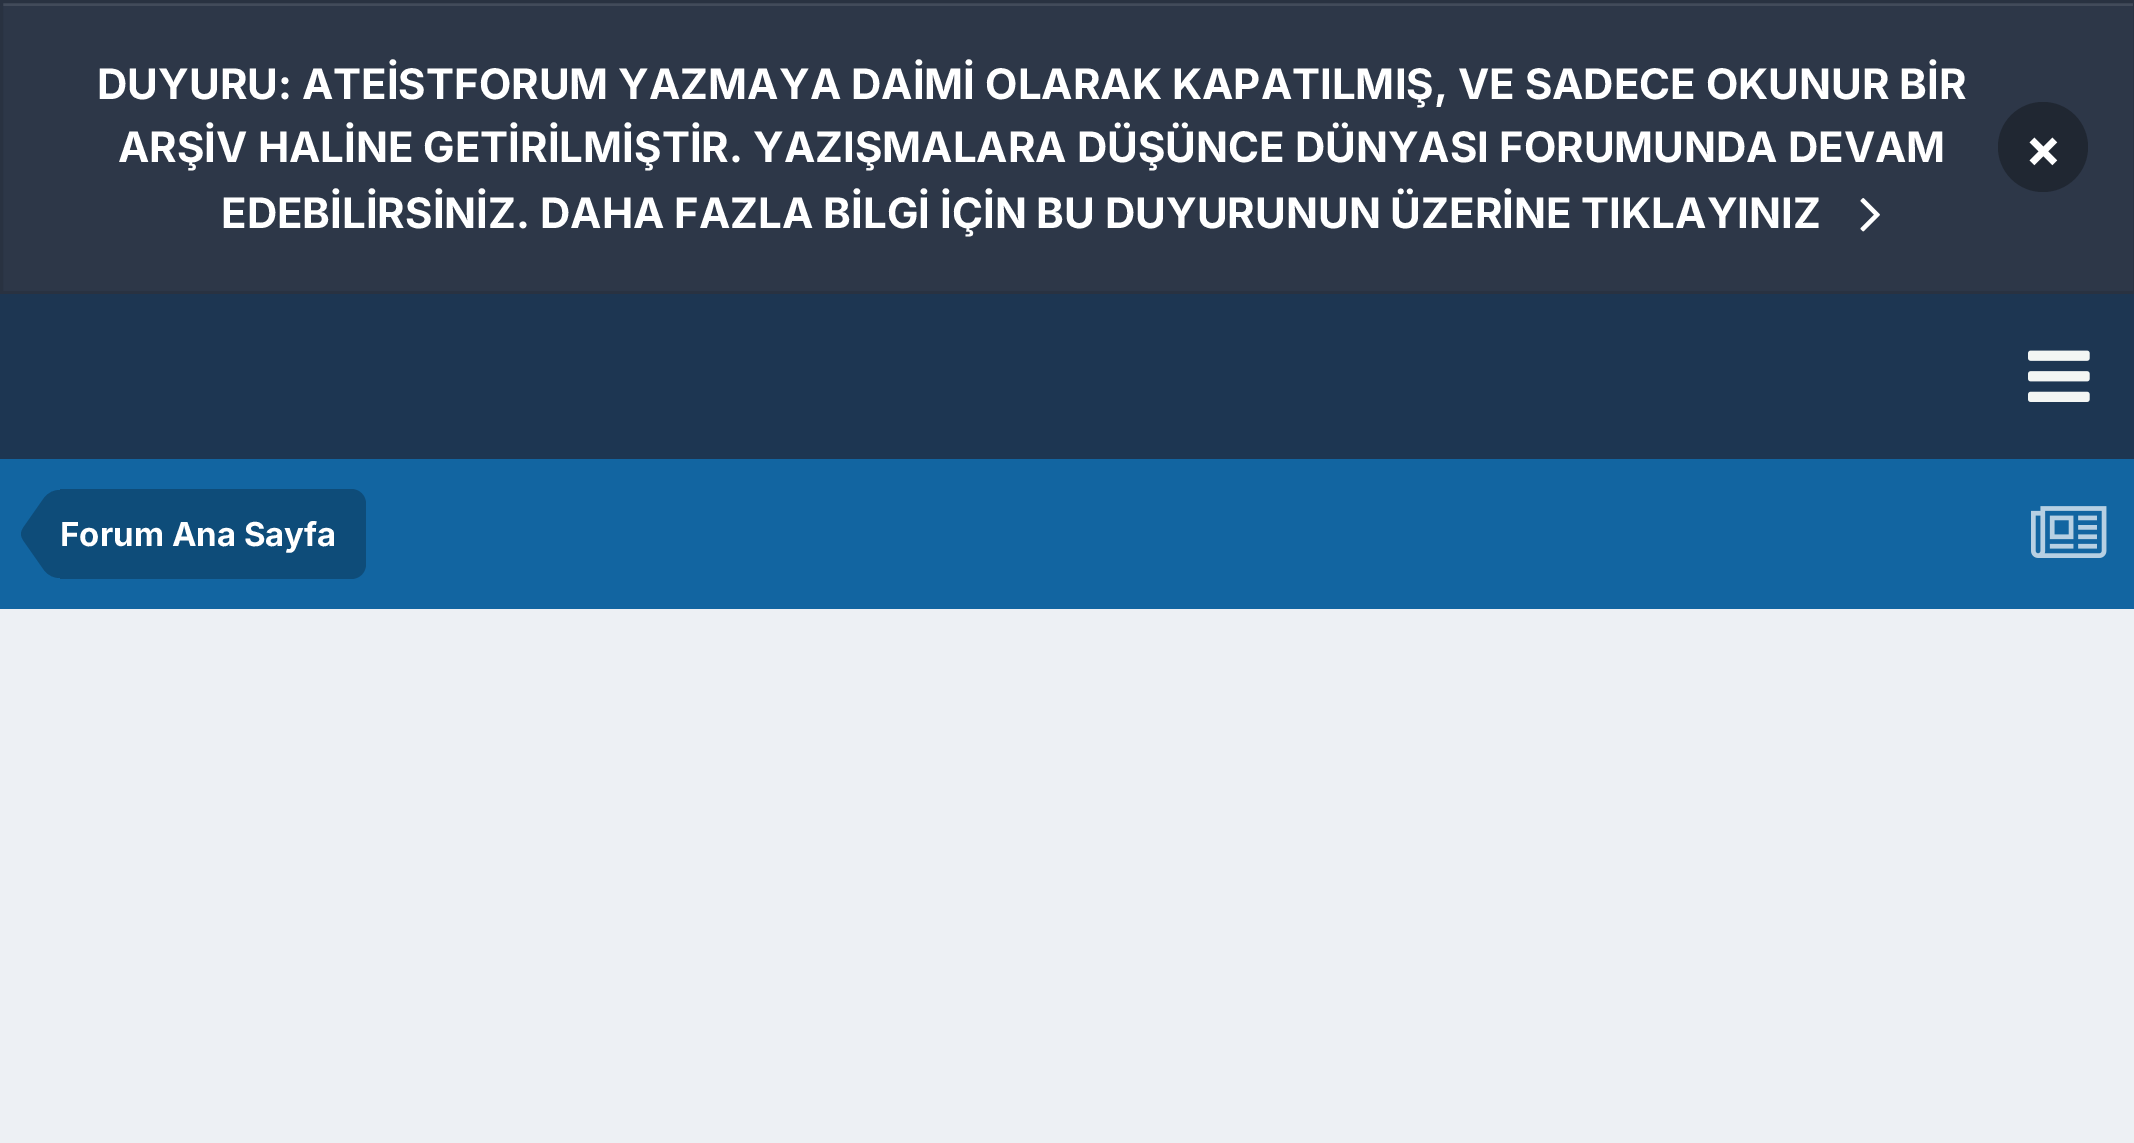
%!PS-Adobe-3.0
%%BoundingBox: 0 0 2134 1143
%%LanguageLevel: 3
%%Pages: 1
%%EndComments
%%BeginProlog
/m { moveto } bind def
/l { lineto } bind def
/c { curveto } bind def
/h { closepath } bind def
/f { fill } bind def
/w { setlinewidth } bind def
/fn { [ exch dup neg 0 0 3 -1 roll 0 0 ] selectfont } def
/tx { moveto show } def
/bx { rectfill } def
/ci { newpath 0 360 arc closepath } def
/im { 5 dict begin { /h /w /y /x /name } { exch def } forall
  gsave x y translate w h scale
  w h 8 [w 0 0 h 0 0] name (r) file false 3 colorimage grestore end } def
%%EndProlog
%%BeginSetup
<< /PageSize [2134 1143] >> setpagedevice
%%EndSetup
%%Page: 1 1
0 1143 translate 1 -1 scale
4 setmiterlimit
0.929 0.941 0.957 setrgbcolor
0 0 2134 1143 bx
0.176 0.216 0.282 setrgbcolor
3 6 2130 285 bx
0.259 0.294 0.353 setrgbcolor
3 3 2130 3 bx
0.161 0.196 0.255 setrgbcolor
3 w
1.5 1.5 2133 291 rectstroke
/Inter-Bold 42 fn
1 setgray
(DUYURU: ATEİSTFORUM YAZMAYA DAİMİ OLARAK KAPATILMIŞ, VE SADECE OKUNUR BİR) 97 99 tx
(ARŞİV HALİNE GETİRİLMİŞTİR. YAZIŞMALARA DÜŞÜNCE DÜNYASI FORUMUNDA DEVAM) 118 162 tx
(EDEBİLİRSİNİZ. DAHA FAZLA BİLGİ İÇİN BU DUYURUNUN ÜZERİNE TIKLAYINIZ) 221 228 tx
(image0.raw) 1860 198 20 34 im
0.125 0.153 0.196 setrgbcolor
2043 147 45 ci f
/Inter-Bold 54 fn
1 setgray
(×) 2025 167 tx
0.114 0.212 0.322 setrgbcolor
0 294 2134 165 bx
(image1.raw) 2028 350 62 52 im
0.071 0.396 0.631 setrgbcolor
0 459 2134 150 bx
0.055 0.298 0.475 setrgbcolor
60 489 m 351 489 l 359.5 489 366 495.5 366 504 c 366 564 l 366 572.5 359.5 579 351 579 c 60 579 l h f
60 534 m 60 578 l 54 578 49 576 44 570 c 23 540 l 22 538 21 536 21 534 c h f
60 534 m 21 534 l 21 532 22 530 23 528 c 44 498 l 49 492 54 490 60 490 c h f
/Inter-Bold 33 fn
1 setgray
(Forum Ana Sayfa) 60 546 tx
(image2.raw) 2031 506 76 52 im
showpage
%%EOF
